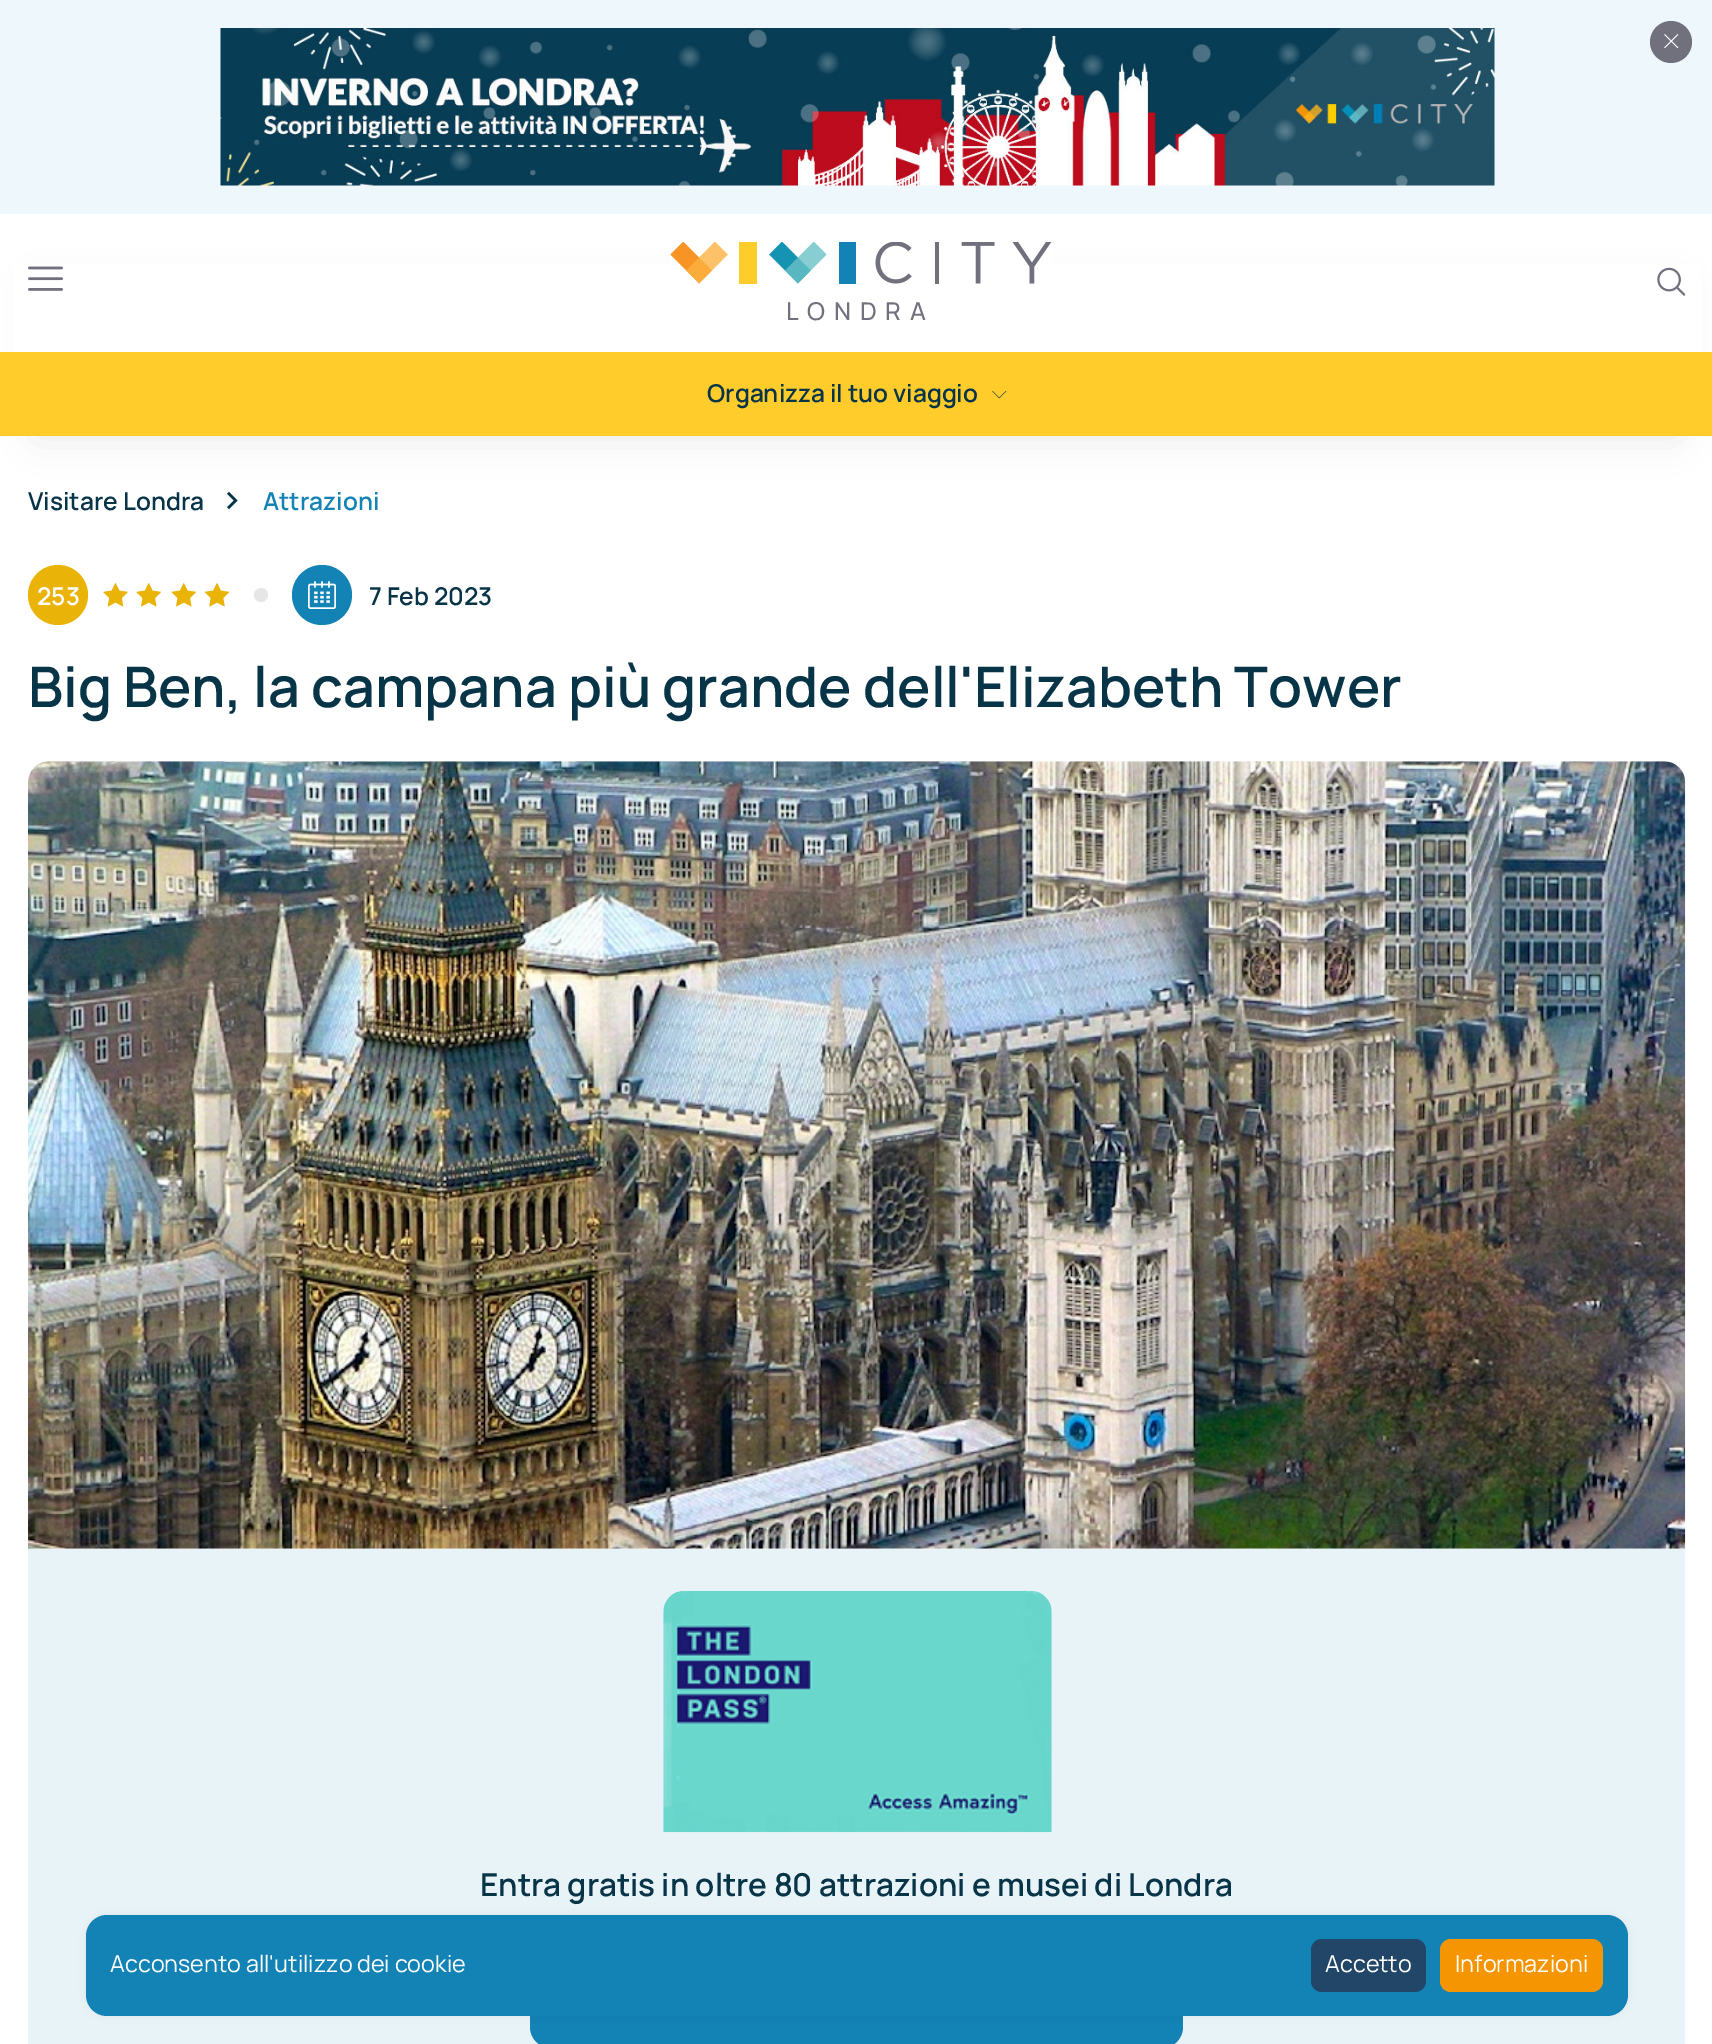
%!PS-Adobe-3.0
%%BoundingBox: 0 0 1712 2044
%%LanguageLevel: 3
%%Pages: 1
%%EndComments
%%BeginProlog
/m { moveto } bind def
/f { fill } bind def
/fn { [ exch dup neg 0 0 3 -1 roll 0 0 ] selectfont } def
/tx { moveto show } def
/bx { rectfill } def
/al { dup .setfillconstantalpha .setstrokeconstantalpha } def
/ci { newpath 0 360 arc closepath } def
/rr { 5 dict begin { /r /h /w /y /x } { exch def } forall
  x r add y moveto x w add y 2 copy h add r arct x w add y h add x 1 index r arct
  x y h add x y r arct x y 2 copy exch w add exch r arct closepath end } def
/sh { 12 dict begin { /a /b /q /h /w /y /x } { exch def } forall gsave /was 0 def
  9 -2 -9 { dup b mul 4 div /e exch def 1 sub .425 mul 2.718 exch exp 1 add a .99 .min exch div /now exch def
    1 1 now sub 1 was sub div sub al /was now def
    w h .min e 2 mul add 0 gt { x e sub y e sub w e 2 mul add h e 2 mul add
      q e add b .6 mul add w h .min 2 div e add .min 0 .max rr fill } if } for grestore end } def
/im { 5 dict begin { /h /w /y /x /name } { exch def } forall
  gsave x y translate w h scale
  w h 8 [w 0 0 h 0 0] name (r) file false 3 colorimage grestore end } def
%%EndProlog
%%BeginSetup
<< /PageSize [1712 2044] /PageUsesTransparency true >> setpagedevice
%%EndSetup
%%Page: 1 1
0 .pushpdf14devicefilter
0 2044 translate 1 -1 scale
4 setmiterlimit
1 setgray
0 0 1712 2044 bx
0.933 0.969 0.984 setrgbcolor
0 0 1712 214 bx
(image0.raw) 220 28 1275 158 im
0.443 0.443 0.494 setrgbcolor
1671 42 21 ci f
(image1.raw) 1664 34 15 15 im
(image6.raw) 227 491 11 19 im
0 setgray
37 289 1640 147 0 18.5 0.1 sh
1 setgray
13 265 1688 87 bx
(image2.raw) 28 266 35 25 im
(image3.raw) 1657 267 29 29 im
(image4.raw) 670 242 382 42 im
/Manrope-Medium 24.5 fn
0.443 0.443 0.494 setrgbcolor
786 320 m 8.75 0 (LONDRA) ashow
1 0.8 0.173 setrgbcolor
0 352 1712 84 bx
/Manrope-SemiBold 24.5 fn
0.031 0.204 0.282 setrgbcolor
(Organizza il tuo viaggio) 707 402 tx
(image5.raw) 992 391 15 8 im
(Visitare Londra) 28 510 tx
0.075 0.51 0.71 setrgbcolor
(Attrazioni) 263 510 tx
0.918 0.702 0.031 setrgbcolor
58 595 30 ci f
1 setgray
(253) 37 605 tx
(image7.raw) 103 583 25 24 im
(image8.raw) 136 583 25 24 im
(image8.raw) 171 583 25 24 im
(image9.raw) 204 583 26 24 im
0.902 setgray
261 595 7 ci f
0.075 0.51 0.71 setrgbcolor
322 595 30 ci f
(image10.raw) 308 581 28 28 im
0.031 0.204 0.282 setrgbcolor
(7 Feb 2023) 369 605 tx
/Manrope-SemiBold 56 fn
(Big Ben, la campana più grande dell'Elizabeth Tower) 28 707 tx
(image11.raw) 28 761 1658 788 im
0.91 0.953 0.973 setrgbcolor
28 1549 1657 495 bx
(image12.raw) 663 1590 389 243 im
/Manrope-SemiBold 31.5 fn
0.031 0.204 0.282 setrgbcolor
(Entra gratis in oltre 80 attrazioni e musei di Londra) 480 1896 tx
0.075 0.51 0.71 setrgbcolor
530 1964 653 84 21 rr f
0 setgray
86 1915 1542 101 21 4.5 0.05 sh
0.075 0.51 0.71 setrgbcolor
86 1915 1542 101 21 rr f
/Manrope-Regular 23.3 fn
1 setgray
(Acconsento all'utilizzo dei cookie) 110 1972 tx
0.133 0.275 0.404 setrgbcolor
1311 1939 115 53 11 rr f
1 setgray
(Accetto) 1325 1972 tx
0.961 0.584 0.008 setrgbcolor
1440 1939 163 53 11 rr f
1 setgray
(Informazioni) 1455 1972 tx
.poppdf14devicefilter showpage
%%EOF
